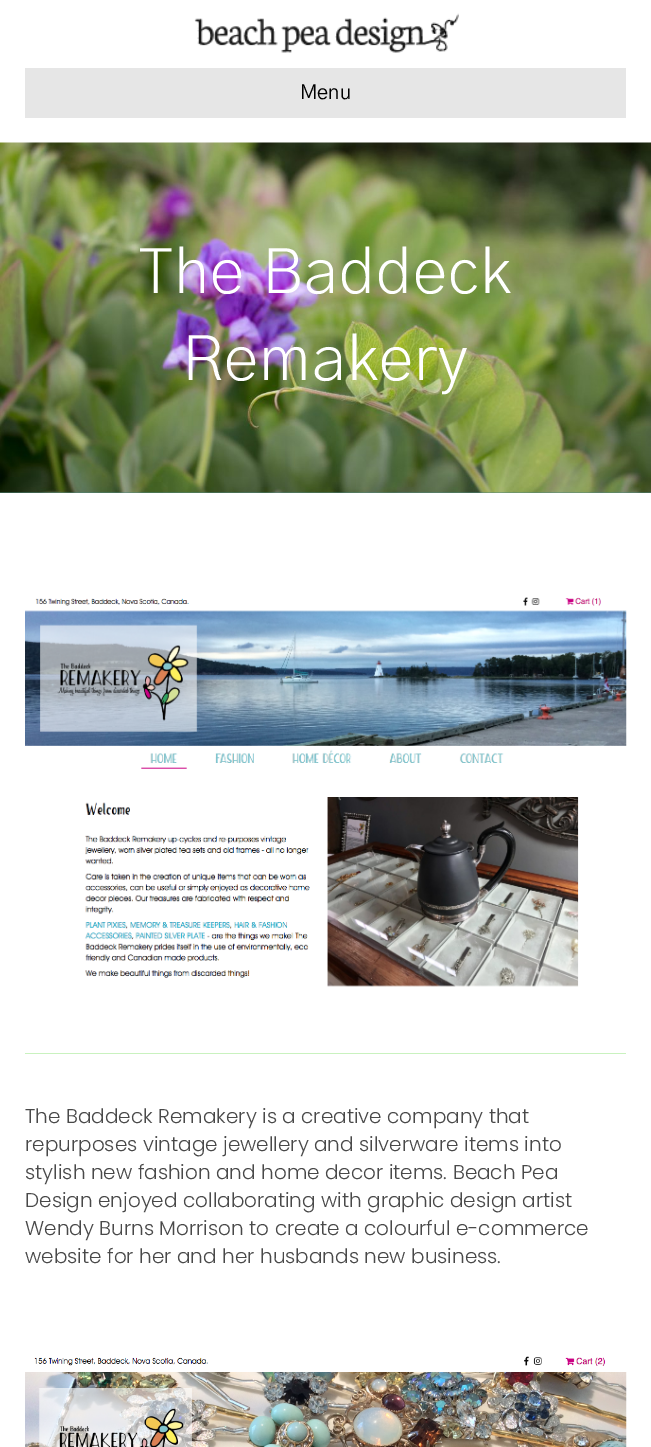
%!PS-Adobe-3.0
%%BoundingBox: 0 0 651 1447
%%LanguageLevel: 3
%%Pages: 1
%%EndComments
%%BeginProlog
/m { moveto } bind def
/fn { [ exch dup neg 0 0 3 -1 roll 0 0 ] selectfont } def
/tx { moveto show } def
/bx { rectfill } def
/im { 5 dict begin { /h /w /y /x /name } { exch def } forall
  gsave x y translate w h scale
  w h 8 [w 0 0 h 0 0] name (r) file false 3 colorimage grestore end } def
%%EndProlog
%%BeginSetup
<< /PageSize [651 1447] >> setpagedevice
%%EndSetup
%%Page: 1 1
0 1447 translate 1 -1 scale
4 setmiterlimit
1 setgray
0 0 651 1447 bx
(image0.raw) 194 13 265 40 im
0.902 setgray
25 68 601 50 bx
/GothicA1-Regular 20 fn
0 setgray
(Menu) 300 99 tx
0.322 0.529 0.478 setrgbcolor
0 492 651 1 bx
(image1.raw) 0 142 651 351 im
/GothicA1-Light 62.5 fn
1 setgray
139 293 m 1.25 0 (The Baddeck) ashow
182 380 m 1.25 0 (Remakery) ashow
(image2.raw) 25 597 602 390 im
0.788 0.949 0.749 setrgbcolor
25 1053 601 1 bx
/Poppins-Light 20 fn
0.286 setgray
(The Baddeck Remakery is a creative company that) 25 1123 tx
(repurposes vintage jewellery and silverware items into) 25 1151 tx
(stylish new fashion and home decor items. Beach Pea) 25 1179 tx
(Design enjoyed collaborating with graphic design artist) 25 1207 tx
(Wendy Burns Morrison to create a colourful e-commerce) 25 1235 tx
(website for her and her husbands new business.) 25 1263 tx
(image3.raw) 25 1356 602 91 im
showpage
%%EOF
